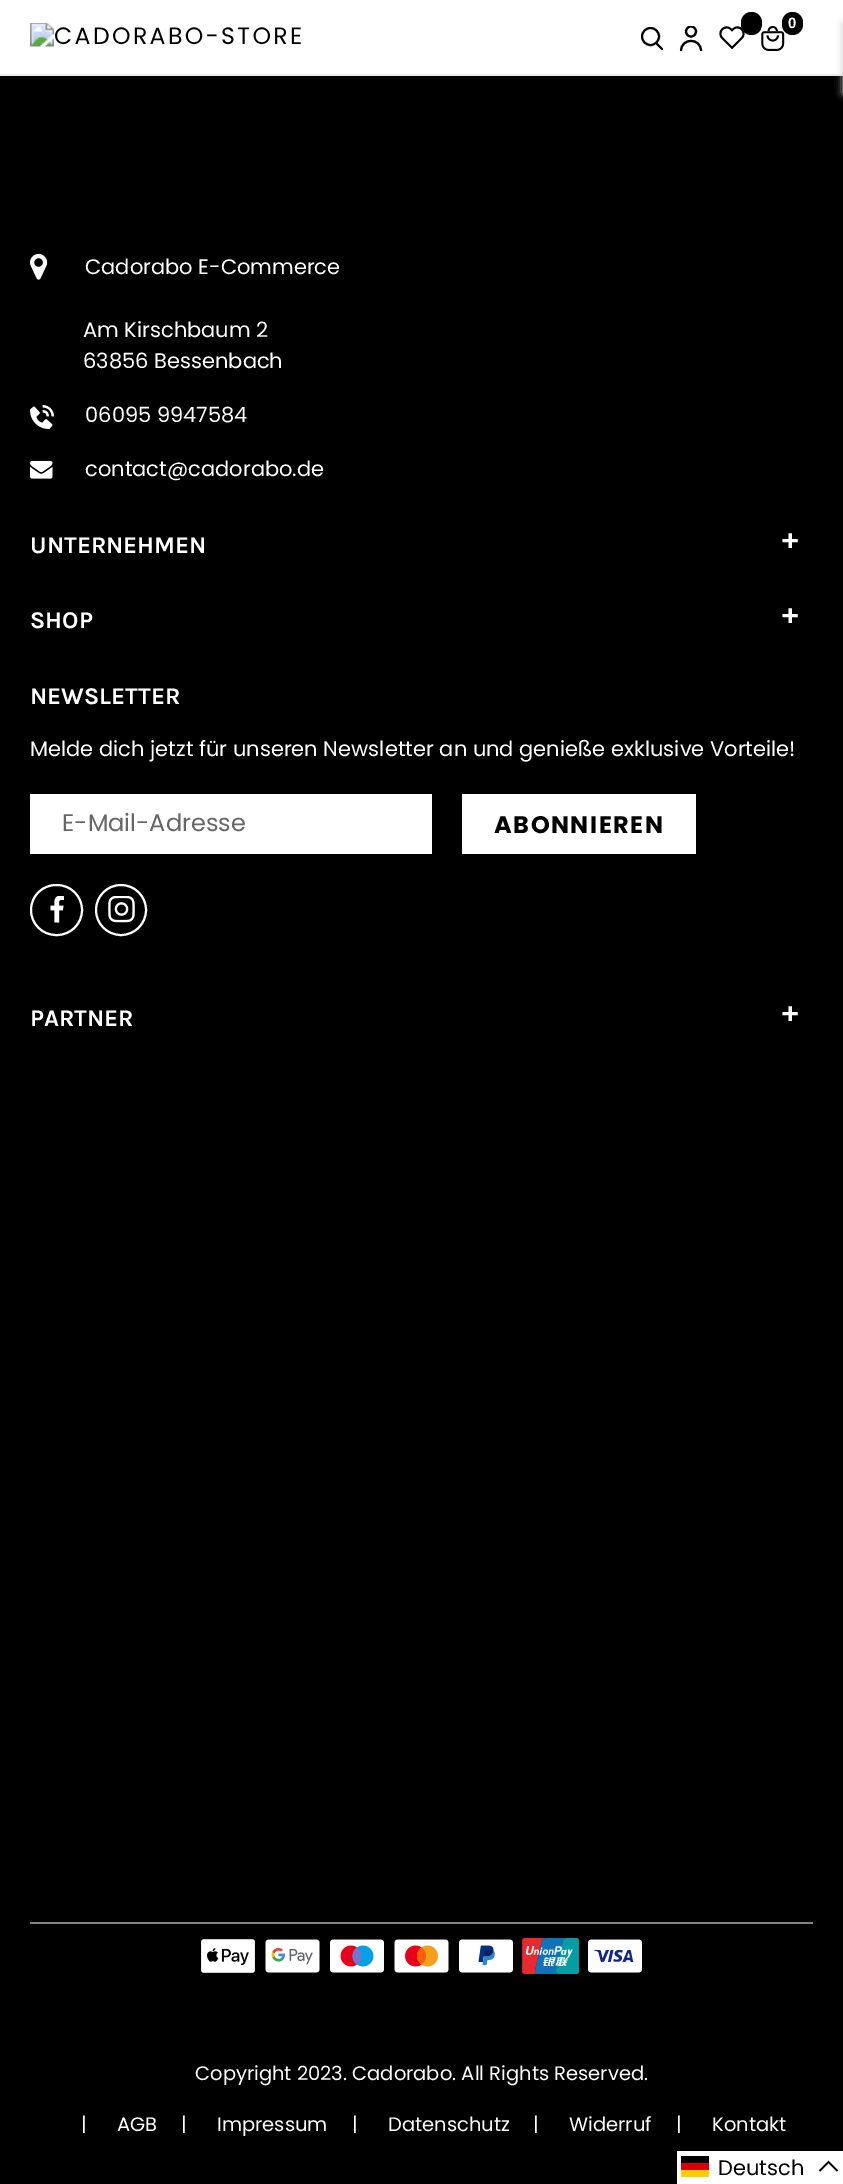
%!PS-Adobe-3.0
%%BoundingBox: 0 0 843 2184
%%LanguageLevel: 3
%%Pages: 1
%%EndComments
%%BeginProlog
/m { moveto } bind def
/l { lineto } bind def
/c { curveto } bind def
/f { fill } bind def
/S { stroke } bind def
/q { gsave } bind def
/Q { grestore } bind def
/w { setlinewidth } bind def
/fn { [ exch dup neg 0 0 3 -1 roll 0 0 ] selectfont } def
/tx { moveto show } def
/bx { rectfill } def
/al { dup .setfillconstantalpha .setstrokeconstantalpha } def
/ci { newpath 0 360 arc closepath } def
/rr { 5 dict begin { /r /h /w /y /x } { exch def } forall
  x r add y moveto x w add y 2 copy h add r arct x w add y h add x 1 index r arct
  x y h add x y r arct x y 2 copy exch w add exch r arct closepath end } def
/sh { 12 dict begin { /a /b /q /h /w /y /x } { exch def } forall gsave /was 0 def
  9 -2 -9 { dup b mul 4 div /e exch def 1 sub .425 mul 2.718 exch exp 1 add a .99 .min exch div /now exch def
    1 1 now sub 1 was sub div sub al /was now def
    w h .min e 2 mul add 0 gt { x e sub y e sub w e 2 mul add h e 2 mul add
      q e add b .6 mul add w h .min 2 div e add .min 0 .max rr fill } if } for grestore end } def
/im { 5 dict begin { /h /w /y /x /name } { exch def } forall
  gsave x y translate w h scale
  w h 8 [w 0 0 h 0 0] name (r) file false 3 colorimage grestore end } def
%%EndProlog
%%BeginSetup
<< /PageSize [843 2184] /PageUsesTransparency true >> setpagedevice
%%EndSetup
%%Page: 1 1
0 .pushpdf14devicefilter
0 2184 translate 1 -1 scale
4 setmiterlimit
0 setgray
0 0 843 2184 bx
1 setgray
0 0 843 74 bx
0.922 setgray
0 74 843 2 bx
(image0.raw) 30 23 271 24 im
(image1.raw) 719 25 26 25 im
0 setgray
741 12 21 23 10.5 rr f
(image2.raw) 761 26 24 25 im
782 12 21 23 10.5 rr f
/LiberationSans-Bold 15 fn
1 setgray
(0) 788 28 tx
0 setgray
2 w
650.5 36.5 8.5 ci S
1 setlinecap
657 44 m 662 49 l S
q
678 26 26 25 rectclip
2.1 w
0 setlinecap
691 31.5 5 ci S
Q
2.1 w
0 setlinecap
701 51 m 701 37.5 681 37.5 681 51 c S
0.8 setgray
843 23 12 70 0 4 1 sh
0.51 setgray
30 1922 783 2 bx
(image3.raw) 30 253 18 27 im
/Poppins-Regular 21 fn
1 setgray
(Cadorabo E-Commerce) 85 274 tx
(Am Kirschbaum 2) 83 337 tx
(63856 Bessenbach) 83 368 tx
(image4.raw) 30 405 24 24 im
(06095 9947584) 85 422 tx
(image5.raw) 30 460 23 19 im
(contact@cadorabo.de) 85 476 tx
/Karla-Bold 24 fn
(UNTERNEHMEN) 30 553 tx
/Karla-Bold 30 fn
(+) 782 548 tx
/Karla-Bold 24 fn
(SHOP) 30 628 tx
/Karla-Bold 30 fn
(+) 782 623 tx
/Karla-Bold 24 fn
(NEWSLETTER) 30 704 tx
/Poppins-Regular 21 fn
(Melde dich jetzt für unseren Newsletter an und genieße exklusive Vorteile!) 30 756 tx
30 794 402 60 bx
/Poppins-Regular 24 fn
0.4 setgray
(E-Mail-Adresse) 62 831 tx
1 setgray
462 794 234 60 bx
/Poppins-Bold 24 fn
0 setgray
494 833 m 1.5 0 (ABONNIEREN) ashow
1 setgray
2 w
31 885 51 50 25 rr S
(image6.raw) 50 896 14 27 im
121 910 25 ci S
(image7.raw) 108 896 27 27 im
/Karla-Bold 24 fn
(PARTNER) 30 1026 tx
/Karla-Bold 30 fn
(+) 782 1021 tx
(image8.raw) 201 1939 54 34 im
(image9.raw) 265 1939 55 34 im
(image10.raw) 330 1939 54 34 im
(image11.raw) 394 1939 55 34 im
(image12.raw) 459 1939 54 34 im
(image13.raw) 522 1938 57 36 im
(image14.raw) 588 1939 54 34 im
/Poppins-Regular 19.5 fn
(Copyright 2023. Cadorabo. All Rights Reserved.) 195 2080 tx
(|) 81 2131 tx
(AGB) 117 2131 tx
(|) 181 2131 tx
(Impressum) 217 2131 tx
(|) 352 2131 tx
(Datenschutz) 388 2131 tx
(|) 533 2131 tx
(Widerruf) 569 2131 tx
(|) 676 2131 tx
(Kontakt) 712 2131 tx
677 2151 166 33 bx
1 0.808 0 setrgbcolor
681 2170 28 7 bx
0 setgray
681 2156 28 7 bx
0.867 0 0 setrgbcolor
681 2163 28 7 bx
/Poppins-Regular 21 fn
0 setgray
(Deutsch) 718 2175 tx
1.5 w
837.5 2171 m 828.5 2162 l 819.5 2171 l S
.poppdf14devicefilter showpage
%%EOF
